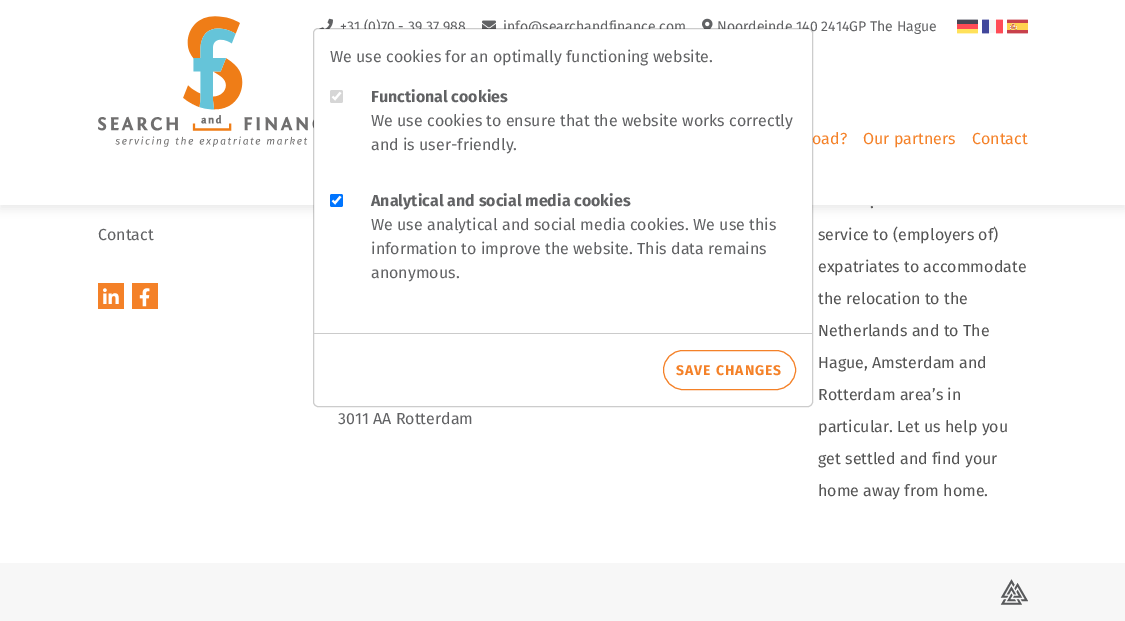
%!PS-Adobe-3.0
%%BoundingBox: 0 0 1125 621
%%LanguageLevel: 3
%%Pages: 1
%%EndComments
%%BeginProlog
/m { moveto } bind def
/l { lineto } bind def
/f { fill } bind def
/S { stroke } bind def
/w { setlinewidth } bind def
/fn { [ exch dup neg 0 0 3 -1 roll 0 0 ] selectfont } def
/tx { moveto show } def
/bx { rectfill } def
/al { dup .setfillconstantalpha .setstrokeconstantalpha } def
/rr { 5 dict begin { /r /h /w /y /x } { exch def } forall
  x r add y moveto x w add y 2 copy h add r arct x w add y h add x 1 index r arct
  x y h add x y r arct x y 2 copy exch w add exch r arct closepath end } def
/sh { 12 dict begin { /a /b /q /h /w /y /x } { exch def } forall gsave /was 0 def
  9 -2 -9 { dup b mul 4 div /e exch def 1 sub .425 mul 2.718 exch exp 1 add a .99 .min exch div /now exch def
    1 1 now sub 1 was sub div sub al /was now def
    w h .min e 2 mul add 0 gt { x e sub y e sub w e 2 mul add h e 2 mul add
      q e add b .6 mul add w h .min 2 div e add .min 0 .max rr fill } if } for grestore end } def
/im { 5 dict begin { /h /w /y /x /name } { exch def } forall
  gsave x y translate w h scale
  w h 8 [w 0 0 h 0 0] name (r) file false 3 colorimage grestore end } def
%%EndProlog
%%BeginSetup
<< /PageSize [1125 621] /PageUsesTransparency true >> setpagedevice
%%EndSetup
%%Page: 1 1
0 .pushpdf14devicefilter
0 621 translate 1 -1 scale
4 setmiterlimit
1 setgray
0 0 1125 621 bx
0.329 0.333 0.333 setrgbcolor
0 4 1125 205 0 4.5 0.12 sh
1 setgray
0 0 1125 205 bx
(image0.raw) 98 16 216 131 im
(image1.raw) 319 18 14 11 im
/FiraSans-Regular 14 fn
0.38 0.384 0.392 setrgbcolor
(+31 \(0\)70 - 39 37 988) 340 31 tx
(image2.raw) 482 20 14 9 im
(info@searchandfinance.com) 503 31 tx
(image3.raw) 702 18 11 11 im
(Noordeinde 140 2414GP The Hague) 717 31 tx
(image4.raw) 957 19 21 15 im
(image5.raw) 982 19 21 15 im
(image6.raw) 1007 19 21 15 im
/FiraSans-Regular 16 fn
0.957 0.506 0.157 setrgbcolor
(oad?) 812 144 tx
(Our partners) 863 144 tx
(Contact) 972 144 tx
1 setgray
314 29 498 377 4 rr f
0.2 al
0 setgray
313.5 28.5 499 378 4.5 rr S
1 al
0.38 0.384 0.392 setrgbcolor
(We use cookies for an optimally functioning website.) 330 62 tx
0.839 setgray
330 90 13 13 2 rr f
1 setgray
2.1 w
332.5 96.5 m 335 99 l 340.5 92.5 l S
/FiraSans-Bold 16 fn
0.38 0.384 0.392 setrgbcolor
(Functional cookies) 371 102 tx
/FiraSans-Regular 16 fn
(We use cookies to ensure that the website works correctly) 371 126 tx
(and is user-friendly.) 371 150 tx
0 0.459 1 setrgbcolor
330 194 13 13 2 rr f
1 setgray
332.5 200.5 m 335 203 l 340.5 196.5 l S
/FiraSans-Bold 16 fn
0.38 0.384 0.392 setrgbcolor
(Analytical and social media cookies) 371 206 tx
/FiraSans-Regular 16 fn
(We use analytical and social media cookies. We use this) 371 230 tx
(information to improve the website. This data remains) 371 254 tx
(anonymous.) 371 278 tx
0.796 setgray
314 333 498 1 bx
0.957 0.506 0.157 setrgbcolor
1 w
663.5 350.5 132 39 19.5 rr S
/FiraSans-Bold 14 fn
676 375 m 1 0 (SAVE CHANGES) ashow
/FiraSans-Regular 16 fn
0.38 0.384 0.392 setrgbcolor
(Contact) 98 240 tx
0.957 0.506 0.157 setrgbcolor
98 283 26 26 bx
(image7.raw) 103 288 16 16 im
132 283 26 26 bx
(image8.raw) 139 288 11 19 im
0.329 setgray
(.) 870 208 tx
(service to \(employers of\)) 818 240 tx
(expatriates to accommodate) 818 272 tx
(the relocation to the) 818 304 tx
(Netherlands and to The) 818 336 tx
(Hague, Amsterdam and) 818 368 tx
(Rotterdam area’s in) 818 400 tx
(particular. Let us help you) 818 432 tx
(get settled and find your) 818 464 tx
(home away from home.) 818 496 tx
0.38 0.384 0.392 setrgbcolor
(3011 AA Rotterdam) 338 424 tx
0.969 setgray
0 563 1125 58 bx
(image9.raw) 1000 579 28 26 im
.poppdf14devicefilter showpage
%%EOF
